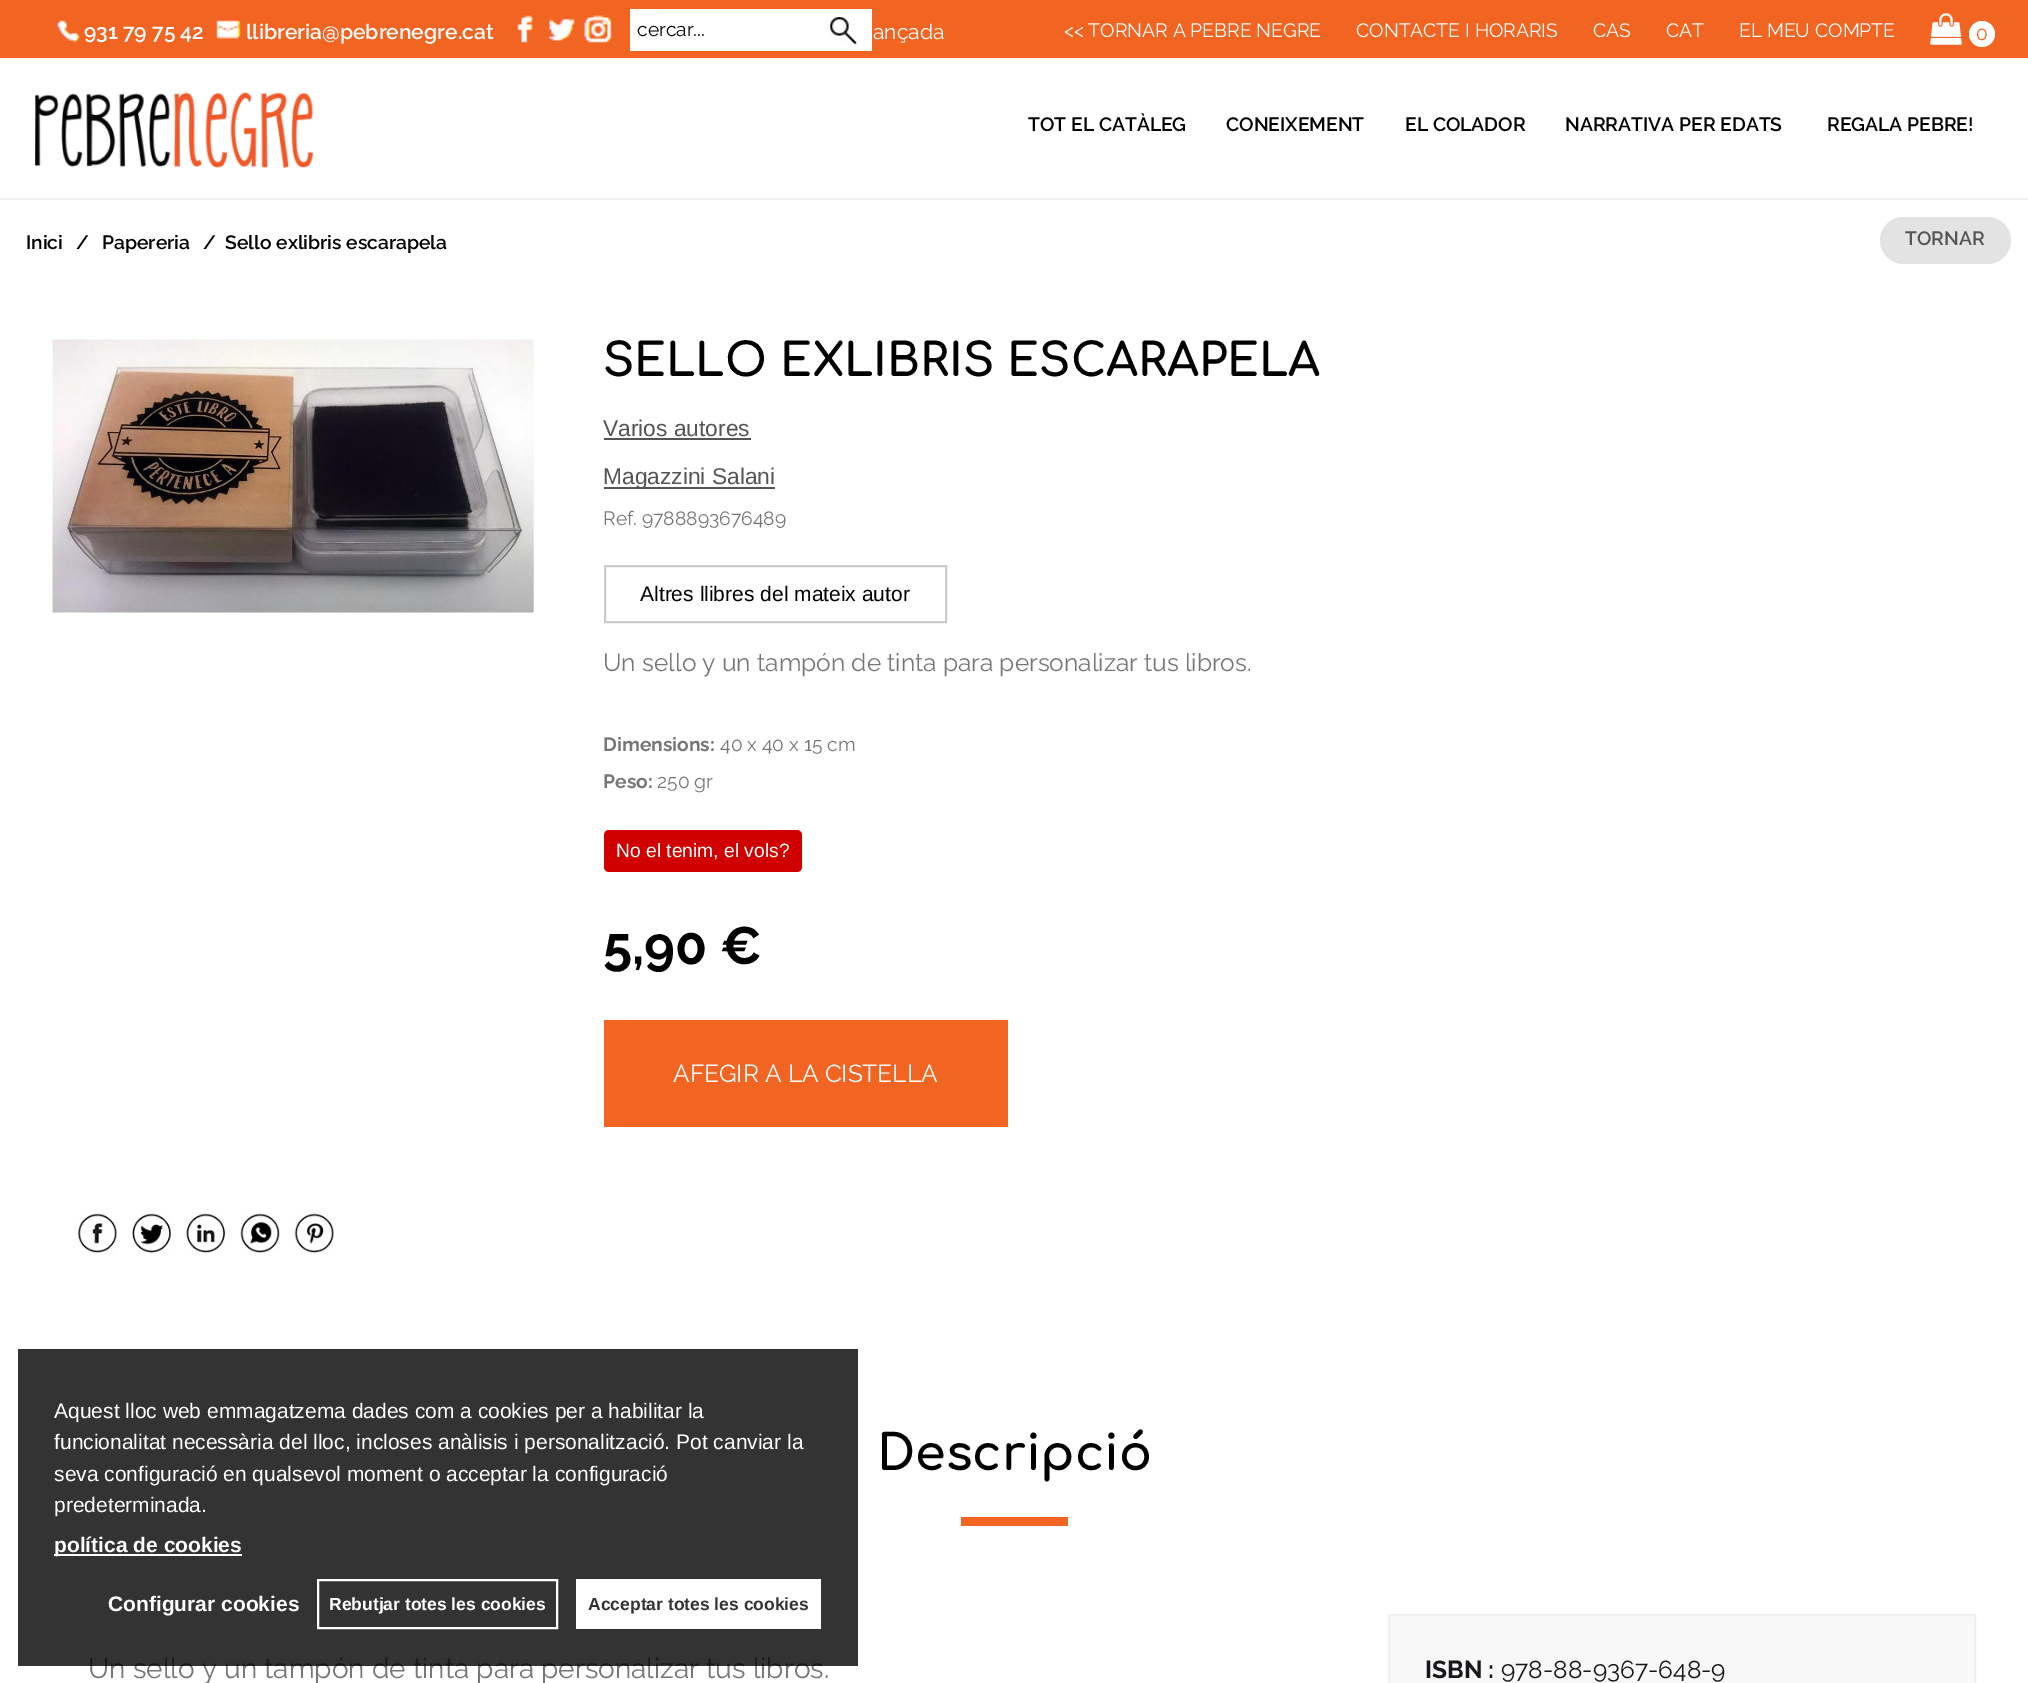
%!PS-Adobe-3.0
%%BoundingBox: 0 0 2028 1683
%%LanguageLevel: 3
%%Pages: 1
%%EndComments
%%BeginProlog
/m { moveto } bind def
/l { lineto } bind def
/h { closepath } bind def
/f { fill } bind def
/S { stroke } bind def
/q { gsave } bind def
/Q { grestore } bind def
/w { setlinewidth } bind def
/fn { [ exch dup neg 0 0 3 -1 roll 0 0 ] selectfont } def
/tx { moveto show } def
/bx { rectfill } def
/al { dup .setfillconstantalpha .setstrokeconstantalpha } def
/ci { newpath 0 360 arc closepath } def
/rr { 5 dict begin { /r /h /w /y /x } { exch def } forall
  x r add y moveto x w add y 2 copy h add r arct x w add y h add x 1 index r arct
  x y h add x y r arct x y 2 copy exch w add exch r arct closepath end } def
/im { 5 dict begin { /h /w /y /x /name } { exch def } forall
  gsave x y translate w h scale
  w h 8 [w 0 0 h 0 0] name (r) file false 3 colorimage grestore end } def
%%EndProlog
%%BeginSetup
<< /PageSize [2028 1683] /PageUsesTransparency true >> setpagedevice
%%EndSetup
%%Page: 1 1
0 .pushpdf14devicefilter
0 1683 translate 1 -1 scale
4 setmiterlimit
1 setgray
0 0 2028 1683 bx
0.949 0.392 0.133 setrgbcolor
0 0 2028 58 bx
(image0.raw) 57 20 23 23 im
/Raleway-SemiBold 21 fn
1 setgray
(931 79 75 42) 84 39 tx
(image1.raw) 216 20 25 19 im
(llibreria@pebrenegre.cat) 246 39 tx
(image2.raw) 517 15 16 28 im
(image3.raw) 547 18 28 23 im
(image4.raw) 584 15 28 28 im
0.945 setgray
0 198 2028 2 bx
1 setgray
630 9 242 42 bx
/Raleway-Regular 19.25 fn
0 setgray
(cercar...) 637 36 tx
(image5.raw) 830 17 27 28 im
/Raleway-Regular 21 fn
1 setgray
(ançada) 873 39 tx
/Raleway-Regular 19.25 fn
(<< TORNAR A PEBRE NEGRE) 1064 37 tx
(CONTACTE I HORARIS) 1356 37 tx
(CAS) 1593 37 tx
(CAT) 1666 37 tx
(EL MEU COMPTE) 1739 37 tx
(image6.raw) 1930 13 32 32 im
1982 34 13 ci f
0.949 0.392 0.133 setrgbcolor
(0) 1976 40 tx
(image7.raw) 35 92 279 76 im
/Raleway-SemiBold 19.25 fn
0 setgray
(TOT EL CATÀLEG) 1028 131 tx
(CONEIXEMENT) 1226 131 tx
(EL COLADOR) 1405 131 tx
(NARRATIVA PER EDATS) 1565 131 tx
(REGALA PEBRE!) 1827 131 tx
(Inici) 26 249 tx
(/) 76 249 tx
(Papereria) 102 249 tx
(/) 203 249 tx
(Sello exlibris escarapela) 225 249 tx
0.89 setgray
1880 217 131 47 23.5 rr f
0.333 setgray
(TORNAR) 1905 245 tx
(image8.raw) 52 339 482 274 im
/Comfortaa-Bold 45.5 fn
0 setgray
(SELLO EXLIBRIS ESCARAPELA) 603 376 tx
/LiberationSans-Regular 22.75 fn
0.333 setgray
(Varios autores) 603 436 tx
604 438 147 2 bx
604 487 171 2 bx
(Magazzini Salani) 603 484 tx
/Raleway-Regular 19.25 fn
0.467 setgray
(Ref. 9788893676489) 603 525 tx
0.8 setgray
2 w
605 566 341 56 rectstroke
/LiberationSans-Regular 21 fn
0 setgray
(Altres llibres del mateix autor) 640 601 tx
/Raleway-Regular 24.5 fn
0.467 setgray
(Un sello y un tampón de tinta para personalizar tus libros.) 603 671 tx
/Raleway-Bold 19.25 fn
(Dimensions:) 603 751 tx
/Raleway-Regular 19.25 fn
(40 x 40 x 15 cm) 720 751 tx
/Raleway-Bold 19.25 fn
(Peso:) 603 788 tx
/Raleway-Regular 19.25 fn
(250 gr) 657 788 tx
0.816 0 0 setrgbcolor
604 830 198 42 5 rr f
/LiberationSans-Regular 19.25 fn
1 setgray
(No el tenim, el vols?) 616 857 tx
/Raleway-Bold 52.5 fn
0 setgray
(5,90 €) 603 964 tx
0.949 0.392 0.133 setrgbcolor
604 1020 404 107 bx
/Raleway-Regular 24.5 fn
1 setgray
(AFEGIR A LA CISTELLA) 673 1082 tx
(image9.raw) 77 1213 40 40 im
(image10.raw) 132 1213 39 40 im
(image11.raw) 186 1213 39 40 im
(image12.raw) 240 1213 40 40 im
(image13.raw) 294 1213 40 40 im
0.949 0.392 0.133 setrgbcolor
961 1517 107 9 bx
/Comfortaa-Bold 49 fn
0 setgray
(Descripció) 877 1470 tx
/Raleway-Regular 28 fn
0.467 setgray
(Un sello y un tampón de tinta para personalizar tus libros.) 88 1678 tx
0.973 setgray
1389 1615 m 1975 1615 l 1975 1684 l 1389 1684 l h q f Q
0.941 setgray
S
/Raleway-Bold 24.5 fn
0.098 0.09 0.11 setrgbcolor
(ISBN :) 1425 1678 tx
/Raleway-Regular 24.5 fn
(978-88-9367-648-9) 1501 1678 tx
0.8 al
0 setgray
18 1349 840 317 bx
/LiberationSans-Regular 21 fn
1 al
1 setgray
(Aquest lloc web emmagatzema dades com a cookies per a habilitar la) 54 1418 tx
(funcionalitat necessària del lloc, incloses anàlisis i personalització. Pot canviar la) 54 1449 tx
(seva configuració en qualsevol moment o acceptar la configuració) 54 1481 tx
(predeterminada.) 54 1512 tx
54 1554 188 2 bx
/LiberationSans-Bold 21 fn
(política de cookies) 54 1552 tx
(Configurar cookies) 108 1611 tx
318 1580 239 48 rectstroke
/LiberationSans-Bold 17.5 fn
(Rebutjar totes les cookies) 329 1610 tx
576 1579 245 50 bx
0.2 setgray
(Acceptar totes les cookies) 588 1610 tx
.poppdf14devicefilter showpage
%%EOF
